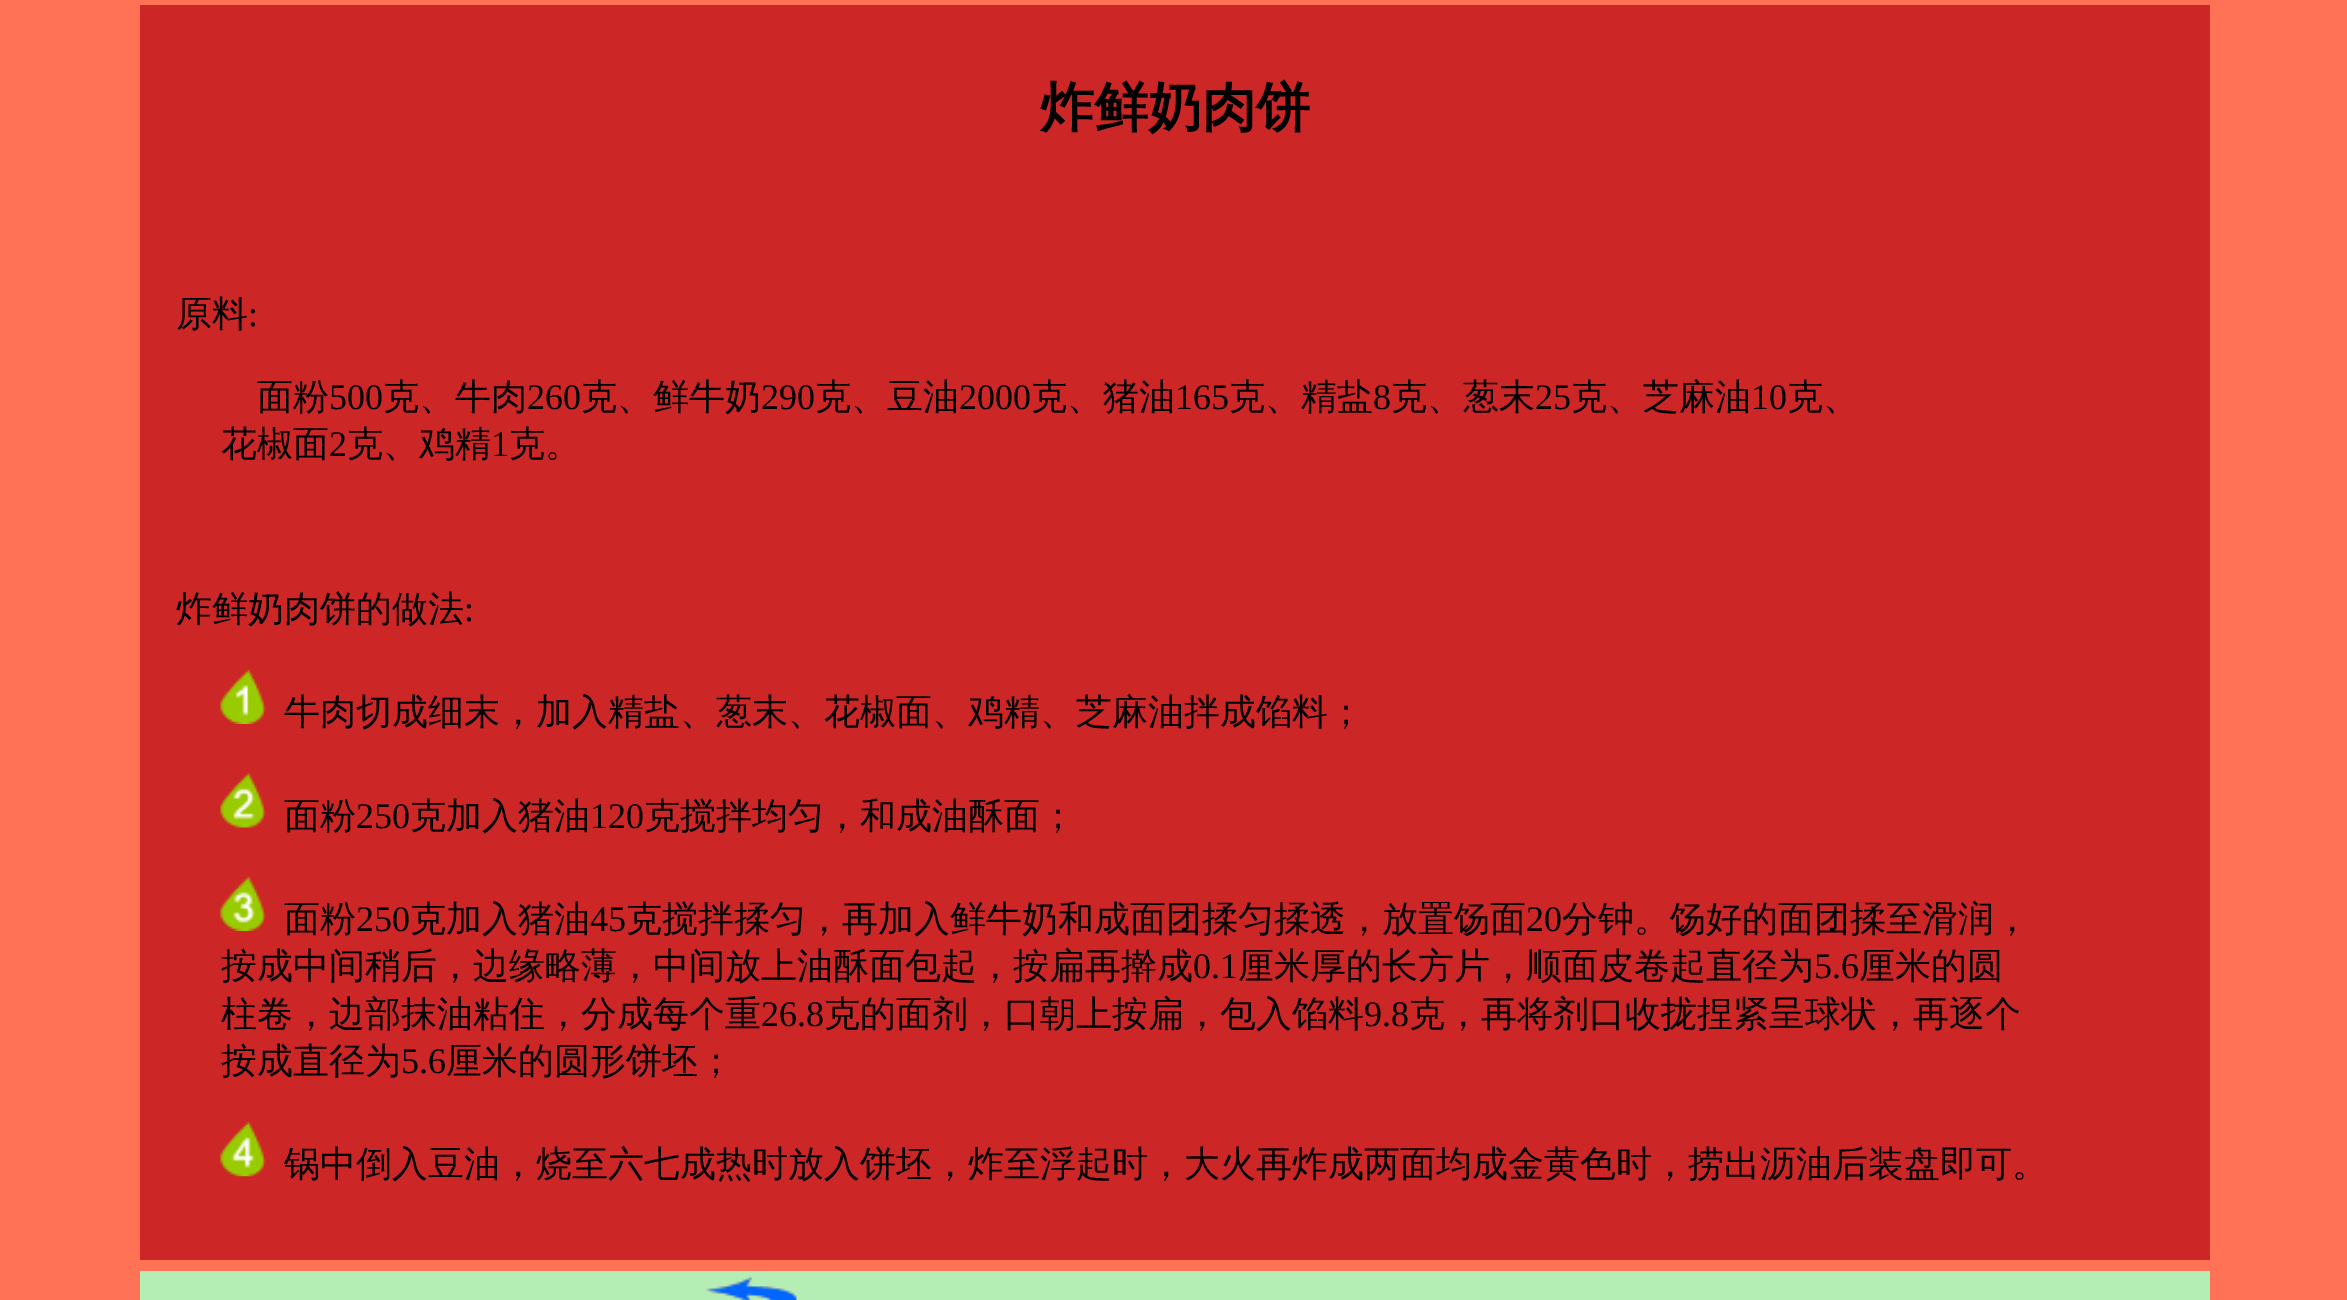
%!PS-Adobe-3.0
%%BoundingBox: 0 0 2347 1300
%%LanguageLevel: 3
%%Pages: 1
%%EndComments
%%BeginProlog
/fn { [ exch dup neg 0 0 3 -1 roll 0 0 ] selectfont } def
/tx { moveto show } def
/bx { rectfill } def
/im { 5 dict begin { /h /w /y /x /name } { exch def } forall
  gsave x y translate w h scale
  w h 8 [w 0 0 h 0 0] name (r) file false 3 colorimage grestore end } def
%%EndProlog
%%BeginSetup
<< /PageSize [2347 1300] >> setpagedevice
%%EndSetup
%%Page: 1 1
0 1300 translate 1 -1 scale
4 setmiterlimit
1 0.447 0.337 setrgbcolor
0 0 2347 1300 bx
0.804 0.149 0.149 setrgbcolor
140 5 2070 1255 bx
/WenQuanYiZenHei-Bold 54 fn
0 setgray
(炸鲜奶肉饼) 1040 126 tx
/WenQuanYiZenHei-Medium 36 fn
(原料) 176 326 tx
/LiberationSerif-Regular 36 fn
(:) 248 326 tx
/WenQuanYiZenHei-Medium 36 fn
(面粉) 257 409 tx
/LiberationSerif-Regular 36 fn
(500) 329 409 tx
/WenQuanYiZenHei-Medium 36 fn
(克、牛肉) 383 409 tx
/LiberationSerif-Regular 36 fn
(260) 527 409 tx
/WenQuanYiZenHei-Medium 36 fn
(克、鲜牛奶) 581 409 tx
/LiberationSerif-Regular 36 fn
(290) 761 409 tx
/WenQuanYiZenHei-Medium 36 fn
(克、豆油) 815 409 tx
/LiberationSerif-Regular 36 fn
(2000) 959 409 tx
/WenQuanYiZenHei-Medium 36 fn
(克、猪油) 1031 409 tx
/LiberationSerif-Regular 36 fn
(165) 1175 409 tx
/WenQuanYiZenHei-Medium 36 fn
(克、精盐) 1229 409 tx
/LiberationSerif-Regular 36 fn
(8) 1373 409 tx
/WenQuanYiZenHei-Medium 36 fn
(克、葱末) 1391 409 tx
/LiberationSerif-Regular 36 fn
(25) 1535 409 tx
/WenQuanYiZenHei-Medium 36 fn
(克、芝麻油) 1571 409 tx
/LiberationSerif-Regular 36 fn
(10) 1751 409 tx
/WenQuanYiZenHei-Medium 36 fn
(克、) 1787 409 tx
(花椒面) 221 456 tx
/LiberationSerif-Regular 36 fn
(2) 329 456 tx
/WenQuanYiZenHei-Medium 36 fn
(克、鸡精) 347 456 tx
/LiberationSerif-Regular 36 fn
(1) 491 456 tx
/WenQuanYiZenHei-Medium 36 fn
(克。) 509 456 tx
(炸鲜奶肉饼的做法) 176 621 tx
/LiberationSerif-Regular 36 fn
(:) 464 621 tx
(image0.raw) 220 670 46 54 im
/WenQuanYiZenHei-Medium 36 fn
(牛肉切成细末，加入精盐、葱末、花椒面、鸡精、芝麻油拌成馅料；) 284 724 tx
(image1.raw) 220 773 46 55 im
(面粉) 284 828 tx
/LiberationSerif-Regular 36 fn
(250) 356 828 tx
/WenQuanYiZenHei-Medium 36 fn
(克加入猪油) 410 828 tx
/LiberationSerif-Regular 36 fn
(120) 590 828 tx
/WenQuanYiZenHei-Medium 36 fn
(克搅拌均匀，和成油酥面；) 644 828 tx
(image2.raw) 220 877 46 54 im
(面粉) 284 931 tx
/LiberationSerif-Regular 36 fn
(250) 356 931 tx
/WenQuanYiZenHei-Medium 36 fn
(克加入猪油) 410 931 tx
/LiberationSerif-Regular 36 fn
(45) 590 931 tx
/WenQuanYiZenHei-Medium 36 fn
(克搅拌揉匀，再加入鲜牛奶和成面团揉匀揉透，放置饧面) 626 931 tx
/LiberationSerif-Regular 36 fn
(20) 1526 931 tx
/WenQuanYiZenHei-Medium 36 fn
(分钟。饧好的面团揉至滑润，) 1562 931 tx
(按成中间稍后，边缘略薄，中间放上油酥面包起，按扁再擀成) 221 978 tx
/LiberationSerif-Regular 36 fn
(0.1) 1193 978 tx
/WenQuanYiZenHei-Medium 36 fn
(厘米厚的长方片，顺面皮卷起直径为) 1238 978 tx
/LiberationSerif-Regular 36 fn
(5.6) 1814 978 tx
/WenQuanYiZenHei-Medium 36 fn
(厘米的圆) 1859 978 tx
(柱卷，边部抹油粘住，分成每个重) 221 1026 tx
/LiberationSerif-Regular 36 fn
(26.8) 761 1026 tx
/WenQuanYiZenHei-Medium 36 fn
(克的面剂，口朝上按扁，包入馅料) 824 1026 tx
/LiberationSerif-Regular 36 fn
(9.8) 1364 1026 tx
/WenQuanYiZenHei-Medium 36 fn
(克，再将剂口收拢捏紧呈球状，再逐个) 1409 1026 tx
(按成直径为) 221 1073 tx
/LiberationSerif-Regular 36 fn
(5.6) 401 1073 tx
/WenQuanYiZenHei-Medium 36 fn
(厘米的圆形饼坯；) 446 1073 tx
(image3.raw) 220 1122 46 55 im
(锅中倒入豆油，烧至六七成热时放入饼坯，炸至浮起时，大火再炸成两面均成金黄色时，捞出沥油后装盘即可。) 284 1176 tx
0.706 0.933 0.706 setrgbcolor
140 1271 2070 29 bx
(image4.raw) 706 1277 91 23 im
showpage
%%EOF
